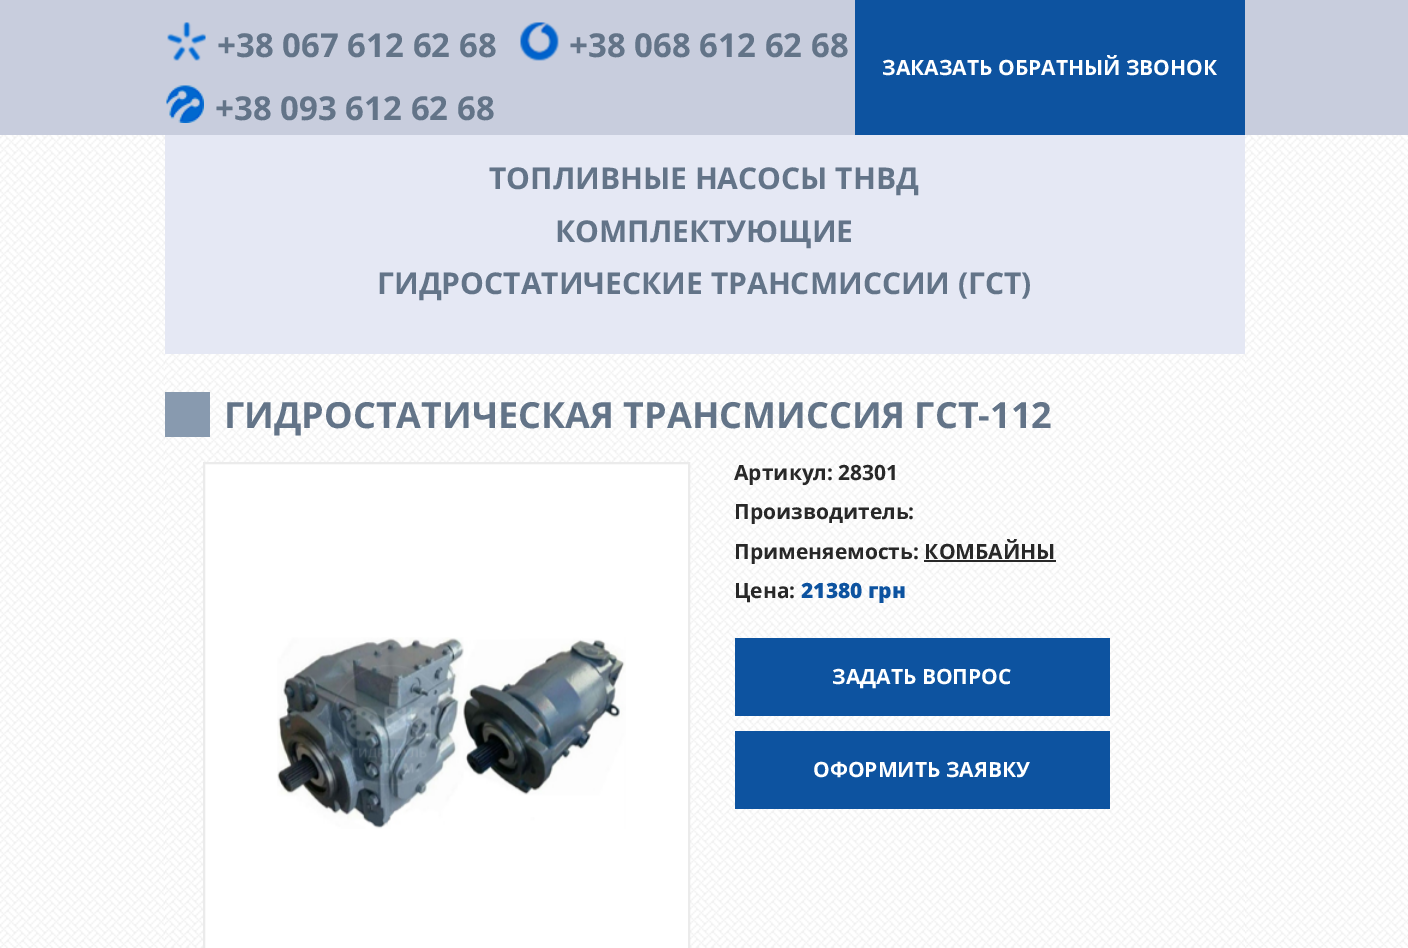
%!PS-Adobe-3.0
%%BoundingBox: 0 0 1408 948
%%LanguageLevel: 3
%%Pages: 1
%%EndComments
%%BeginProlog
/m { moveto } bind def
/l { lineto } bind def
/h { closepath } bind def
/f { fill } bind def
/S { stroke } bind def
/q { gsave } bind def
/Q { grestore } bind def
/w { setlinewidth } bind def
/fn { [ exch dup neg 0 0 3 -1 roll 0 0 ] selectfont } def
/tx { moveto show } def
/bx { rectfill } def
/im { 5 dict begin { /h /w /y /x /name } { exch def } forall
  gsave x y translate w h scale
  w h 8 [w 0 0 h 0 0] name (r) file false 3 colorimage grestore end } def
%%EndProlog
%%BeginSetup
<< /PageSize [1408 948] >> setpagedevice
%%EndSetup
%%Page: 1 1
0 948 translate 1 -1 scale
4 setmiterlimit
1 setgray
0 0 1408 948 bx
0.784 0.804 0.867 setrgbcolor
0 0 1408 135 bx
(image0.raw) 167 22 39 39 im
/OpenSans-Bold 33 fn
0.388 0.455 0.533 setrgbcolor
(+38 067 612 62 68) 217 57 tx
(image1.raw) 520 22 39 39 im
(+38 068 612 62 68) 569 57 tx
0.051 0.325 0.627 setrgbcolor
855 0 390 135 bx
/OpenSans-Bold 21 fn
1 setgray
(ЗАКАЗАТЬ ОБРАТНЫЙ ЗВОНОК) 882 75 tx
(image2.raw) 166 85 38 38 im
/OpenSans-Bold 33 fn
0.388 0.455 0.533 setrgbcolor
(+38 093 612 62 68) 215 120 tx
(image3.raw) 0 135 1408 813 im
0.898 0.91 0.957 setrgbcolor
165 135 1080 219 bx
/OpenSans-Bold 30 fn
0.388 0.455 0.533 setrgbcolor
(ТОПЛИВНЫЕ НАСОСЫ ТНВД) 489 189 tx
(КОМПЛЕКТУЮЩИЕ) 555 242 tx
(ГИДРОСТАТИЧЕСКИЕ ТРАНСМИССИИ \(ГСТ\)) 377 294 tx
(image4.raw) 165 354 1080 594 im
0.533 0.604 0.686 setrgbcolor
165 392 45 45 bx
/OpenSans-Bold 36 fn
0.388 0.455 0.533 setrgbcolor
(ГИДРОСТАТИЧЕСКАЯ ТРАНСМИССИЯ ГСТ-112) 224 428 tx
1 setgray
204 463 m 689 463 l 689 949 l 204 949 l h q f Q
0.922 setgray
2 w
S
(image5.raw) 277 637 349 192 im
/OpenSans-Bold 21 fn
0.157 setgray
(Артикул: 28301) 734 480 tx
(Производитель:) 734 519 tx
(Применяемость: КОМБАЙНЫ) 734 559 tx
924 560 132 2 bx
(Цена:) 734 598 tx
/OpenSans-ExtraBold 21 fn
0.051 0.325 0.627 setrgbcolor
(21380 грн) 801 598 tx
735 638 375 78 bx
/OpenSans-Bold 21 fn
1 setgray
(ЗАДАТЬ ВОПРОС) 832 684 tx
0.051 0.325 0.627 setrgbcolor
735 731 375 78 bx
1 setgray
(ОФОРМИТЬ ЗАЯВКУ) 813 777 tx
showpage
%%EOF
